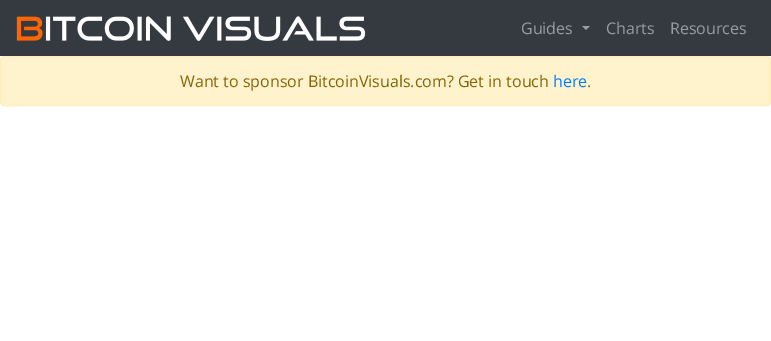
%!PS-Adobe-3.0
%%BoundingBox: 0 0 771 341
%%LanguageLevel: 3
%%Pages: 1
%%EndComments
%%BeginProlog
/m { moveto } bind def
/l { lineto } bind def
/h { closepath } bind def
/f { fill } bind def
/S { stroke } bind def
/q { gsave } bind def
/Q { grestore } bind def
/fn { [ exch dup neg 0 0 3 -1 roll 0 0 ] selectfont } def
/tx { moveto show } def
/bx { rectfill } def
/rr { 5 dict begin { /r /h /w /y /x } { exch def } forall
  x r add y moveto x w add y 2 copy h add r arct x w add y h add x 1 index r arct
  x y h add x y r arct x y 2 copy exch w add exch r arct closepath end } def
/im { 5 dict begin { /h /w /y /x /name } { exch def } forall
  gsave x y translate w h scale
  w h 8 [w 0 0 h 0 0] name (r) file false 3 colorimage grestore end } def
%%EndProlog
%%BeginSetup
<< /PageSize [771 341] >> setpagedevice
%%EndSetup
%%Page: 1 1
0 341 translate 1 -1 scale
4 setmiterlimit
1 setgray
0 0 771 341 bx
0.204 0.227 0.251 setrgbcolor
0 0 771 56 bx
(image0.raw) 16 16 350 25 im
/OpenSans-Regular 16 fn
0.604 0.616 0.627 setrgbcolor
(Guides) 521 34 tx
582 26 m 590 26 l 586 30 l h f
(Charts) 606 34 tx
(Resources) 670 34 tx
1 0.953 0.804 setrgbcolor
0.5 56.5 770 49 3.5 rr q f Q
1 0.933 0.729 setrgbcolor
S
0.522 0.392 0.016 setrgbcolor
(Want to sponsor BitcoinVisuals.com? Get in touch) 180 87 tx
0 0.482 1 setrgbcolor
(here) 553 87 tx
0.522 0.392 0.016 setrgbcolor
(.) 587 87 tx
showpage
%%EOF
